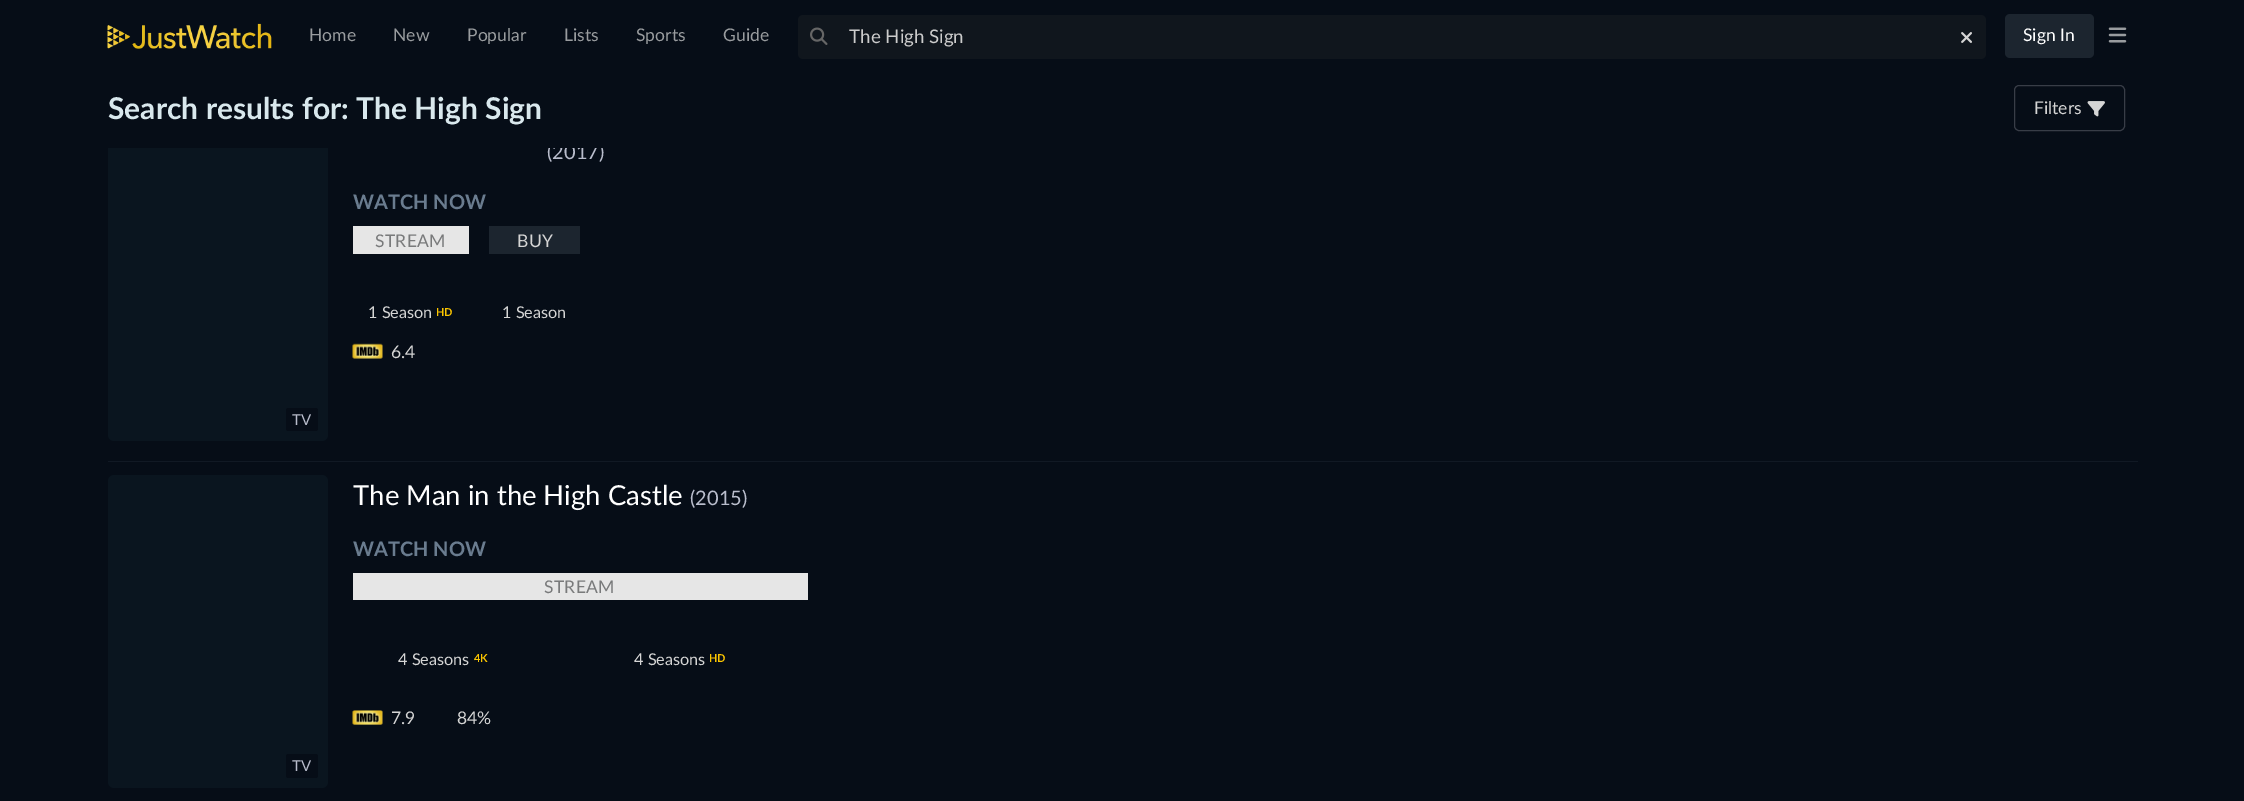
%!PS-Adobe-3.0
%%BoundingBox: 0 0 2244 801
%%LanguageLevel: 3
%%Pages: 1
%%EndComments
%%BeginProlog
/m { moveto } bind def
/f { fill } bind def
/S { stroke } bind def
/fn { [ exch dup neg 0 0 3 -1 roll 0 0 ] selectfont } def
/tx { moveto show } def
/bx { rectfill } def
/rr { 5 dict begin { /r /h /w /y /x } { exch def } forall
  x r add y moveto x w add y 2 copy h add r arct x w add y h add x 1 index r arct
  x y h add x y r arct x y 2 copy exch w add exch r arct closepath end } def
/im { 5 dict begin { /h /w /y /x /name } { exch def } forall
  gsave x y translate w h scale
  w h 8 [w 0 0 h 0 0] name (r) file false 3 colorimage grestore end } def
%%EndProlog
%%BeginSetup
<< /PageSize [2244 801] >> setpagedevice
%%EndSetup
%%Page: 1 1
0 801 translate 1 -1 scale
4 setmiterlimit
0.024 0.051 0.09 setrgbcolor
0 0 2244 801 bx
(image0.raw) 107 23 165 26 im
/Lato-Regular 17.5 fn
0.6 0.612 0.624 setrgbcolor
(Home) 309 41 tx
(New) 393 41 tx
(Popular) 467 41 tx
(Lists) 564 41 tx
(Sports) 636 41 tx
(Guide) 723 41 tx
0.063 0.086 0.114 setrgbcolor
798 15 1188 44 5 rr f
(image1.raw) 810 27 18 18 im
/Lato-Regular 18.75 fn
0.8 setgray
(The High Sign) 849 43 tx
(image2.raw) 1961 32 11 11 im
0.11 0.145 0.184 setrgbcolor
2005 14 89 44 5 rr f
/Lato-Regular 17.5 fn
1 setgray
(Sign In) 2023 41 tx
(image3.raw) 2108 27 19 16 im
/Lato-Regular 20 fn
0.725 0.741 0.8 setrgbcolor
(\(2017\)) 547 159 tx
0.039 0.082 0.122 setrgbcolor
108 129 220 312 6 rr f
0.024 0.051 0.09 setrgbcolor
108 129 495 19 bx
/Lato-Bold 30 fn
0.851 0.91 0.929 setrgbcolor
(Search results for: The High Sign) 108 119 tx
0.22 0.239 0.278 setrgbcolor
2014.5 85.5 110 45 4.5 rr S
/Lato-Regular 17.5 fn
0.835 setgray
(Filters) 2034 114 tx
(image4.raw) 2087 101 18 16 im
0.067 0.098 0.141 setrgbcolor
108 461 2030 1 bx
/Lato-Bold 20 fn
0.416 0.486 0.561 setrgbcolor
(WATCH NOW) 353 209 tx
0.902 setgray
353 226 116 28 bx
/Lato-Regular 17.5 fn
0.475 0.478 0.482 setrgbcolor
375 247 m 0.25 0 (STREAM) ashow
/Lato-Regular 16.25 fn
0.835 setgray
(1 Season) 368 318 tx
/Lato-Bold 11 fn
0.984 0.773 0 setrgbcolor
(HD) 436 316 tx
0.11 0.145 0.184 setrgbcolor
489 226 91 28 bx
/Lato-Regular 17.5 fn
0.835 setgray
517 247 m 0.25 0 (BUY) ashow
/Lato-Regular 16.25 fn
(1 Season) 502 318 tx
(image5.raw) 352 343 31 16 im
/Lato-Regular 17.5 fn
(6.4) 391 358 tx
0.024 0.051 0.09 setrgbcolor
286 408 32 23 2.5 rr f
/Lato-Regular 15 fn
0.725 0.741 0.8 setrgbcolor
(TV) 292 425 tx
/Lato-Regular 27.5 fn
1 setgray
(The Man in the High Castle) 353 505 tx
/Lato-Regular 20 fn
0.725 0.741 0.8 setrgbcolor
(\(2015\)) 690 505 tx
/Lato-Bold 20 fn
0.416 0.486 0.561 setrgbcolor
(WATCH NOW) 353 556 tx
0.902 setgray
353 573 455 27 bx
/Lato-Regular 17.5 fn
0.475 0.478 0.482 setrgbcolor
544 593 m 0.25 0 (STREAM) ashow
/Lato-Regular 16.25 fn
0.835 setgray
(4 Seasons) 398 665 tx
/Lato-Bold 11 fn
0.984 0.773 0 setrgbcolor
(4K) 474 662 tx
/Lato-Regular 16.25 fn
0.835 setgray
(4 Seasons) 634 665 tx
/Lato-Bold 11 fn
0.984 0.773 0 setrgbcolor
(HD) 709 662 tx
(image6.raw) 352 710 31 15 im
/Lato-Regular 17.5 fn
0.835 setgray
(7.9) 391 724 tx
(84%) 457 724 tx
0.039 0.082 0.122 setrgbcolor
108 475 220 313 6 rr f
0.024 0.051 0.09 setrgbcolor
286 754 32 24 2.5 rr f
/Lato-Regular 15 fn
0.725 0.741 0.8 setrgbcolor
(TV) 292 771 tx
showpage
%%EOF
